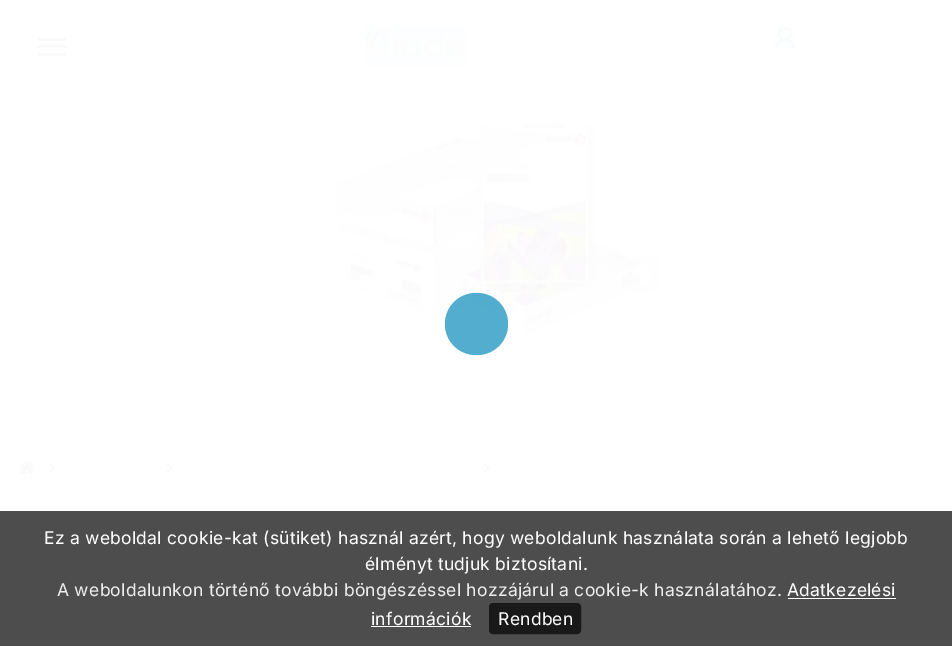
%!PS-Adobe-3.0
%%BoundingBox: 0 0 952 646
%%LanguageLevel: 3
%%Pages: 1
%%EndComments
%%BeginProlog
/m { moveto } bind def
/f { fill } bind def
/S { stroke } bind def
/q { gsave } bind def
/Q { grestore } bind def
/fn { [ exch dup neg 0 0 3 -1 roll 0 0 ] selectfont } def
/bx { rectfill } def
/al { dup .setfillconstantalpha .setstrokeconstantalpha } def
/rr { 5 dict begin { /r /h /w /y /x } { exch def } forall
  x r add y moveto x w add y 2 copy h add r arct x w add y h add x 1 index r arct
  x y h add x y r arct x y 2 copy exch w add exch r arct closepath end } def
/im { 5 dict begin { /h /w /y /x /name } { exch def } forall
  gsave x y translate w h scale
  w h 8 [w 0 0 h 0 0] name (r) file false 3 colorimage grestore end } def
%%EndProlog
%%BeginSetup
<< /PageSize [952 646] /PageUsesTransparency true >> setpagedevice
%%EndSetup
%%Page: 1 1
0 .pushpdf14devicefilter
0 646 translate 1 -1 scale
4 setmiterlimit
1 setgray
0 0 952 646 bx
0.98 setgray
38 38 28 3 bx
38 45 28 3 bx
38 53 28 3 bx
(image0.raw) 365 26 101 40 im
(image1.raw) 775 27 20 22 im
(image2.raw) 289 88 375 248 im
(image3.raw) 19 461 16 13 im
(image4.raw) 48 463 7 10 im
(image5.raw) 166 463 6 10 im
(image4.raw) 483 463 7 10 im
0.58 al
0.18 0.608 0.773 setrgbcolor
445 293 63 62 31 rr f
445 293 63 62 31 rr f
0.9 al
0.227 setgray
0 511 952 135 bx
/Inter-Regular 17.5 fn
1 al
1 setgray
44 544 m 0.25 0 (Ez a weboldal cookie-kat \(sütiket\) használ azért, hogy weboldalunk használata során a lehető legjobb) ashow
365 570 m 0.25 0 (élményt tudjuk biztosítani.) ashow
0.929 setgray
57 596 m 0.25 0 (A weboldalunkon történő további böngészéssel hozzájárul a cookie-k használatához.) ashow
1 setgray
787 596 m 0.25 0 (Adatkezelési) ashow
788 598 108 1 bx
371 625 m 0.25 0 (információk) ashow
371 626 100 1 bx
0.098 setgray
489.5 603.5 91 30 3.5 rr q f Q
S
1 setgray
498 625 m 0.25 0 (Rendben) ashow
.poppdf14devicefilter showpage
%%EOF
